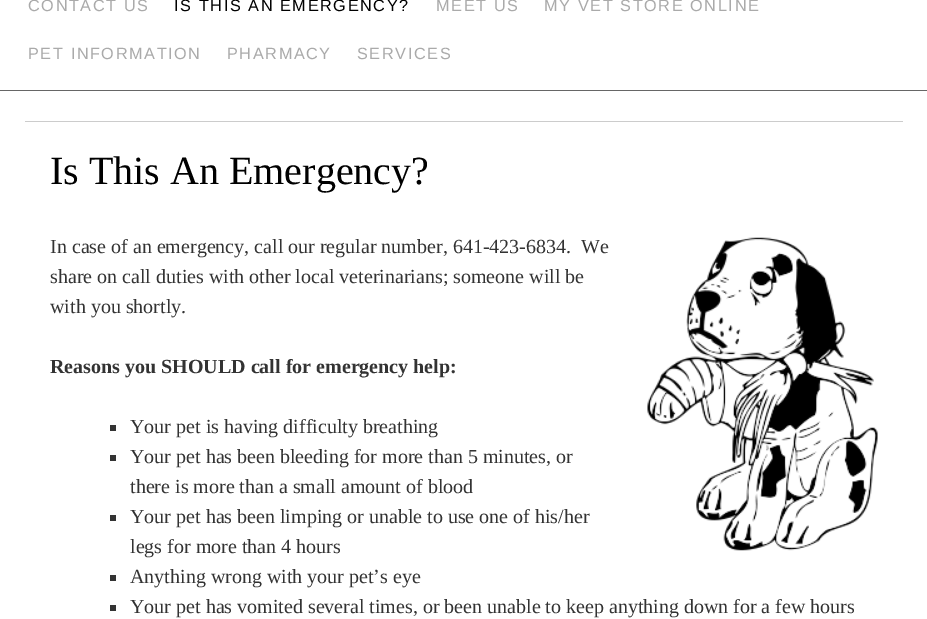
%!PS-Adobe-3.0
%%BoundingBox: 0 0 927 619
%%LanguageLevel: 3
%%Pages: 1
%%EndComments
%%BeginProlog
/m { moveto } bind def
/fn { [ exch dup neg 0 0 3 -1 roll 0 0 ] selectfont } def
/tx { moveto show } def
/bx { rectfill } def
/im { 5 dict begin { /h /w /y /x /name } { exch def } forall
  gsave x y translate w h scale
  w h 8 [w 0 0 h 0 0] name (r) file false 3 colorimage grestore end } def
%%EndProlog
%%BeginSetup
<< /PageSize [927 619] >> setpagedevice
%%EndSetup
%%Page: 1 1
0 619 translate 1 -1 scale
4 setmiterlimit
1 setgray
0 0 927 619 bx
0.4 setgray
0 90 927 1 bx
/LiberationSans-Regular 16.25 fn
0.667 setgray
28 11 m 1.6 0 (CONTACT US) ashow
0 setgray
174 11 m 1.6 0 (IS THIS AN EMERGENCY?) ashow
0.667 setgray
436 11 m 1.6 0 (MEET US) ashow
544 11 m 1.6 0 (MY VET STORE ONLINE) ashow
28 59 m 1.6 0 (PET INFORMATION) ashow
227 59 m 1.6 0 (PHARMACY) ashow
357 59 m 1.6 0 (SERVICES) ashow
0.8 setgray
25 121 878 1 bx
/LiberationSerif-Regular 40 fn
0 setgray
(Is This An Emergency?) 50 184 tx
/LiberationSerif-Regular 20 fn
0.2 setgray
(In case of an emergency, call our regular number, 641-423-6834.  We) 50 253 tx
(image0.raw) 647 237 231 314 im
(share on call duties with other local veterinarians; someone will be) 50 283 tx
(with you shortly.) 50 313 tx
/LiberationSerif-Bold 20 fn
(Reasons you SHOULD call for emergency help:) 50 373 tx
110 425 6 6 bx
/LiberationSerif-Regular 20 fn
(Your pet is having difficulty breathing) 130 433 tx
110 455 6 6 bx
(Your pet has been bleeding for more than 5 minutes, or) 130 463 tx
(there is more than a small amount of blood) 130 493 tx
110 515 6 6 bx
(Your pet has been limping or unable to use one of his/her) 130 523 tx
(legs for more than 4 hours) 130 553 tx
110 575 6 6 bx
(Anything wrong with your pet’s eye) 130 583 tx
110 605 6 6 bx
(Your pet has vomited several times, or been unable to keep anything down for a few hours) 130 613 tx
showpage
%%EOF
